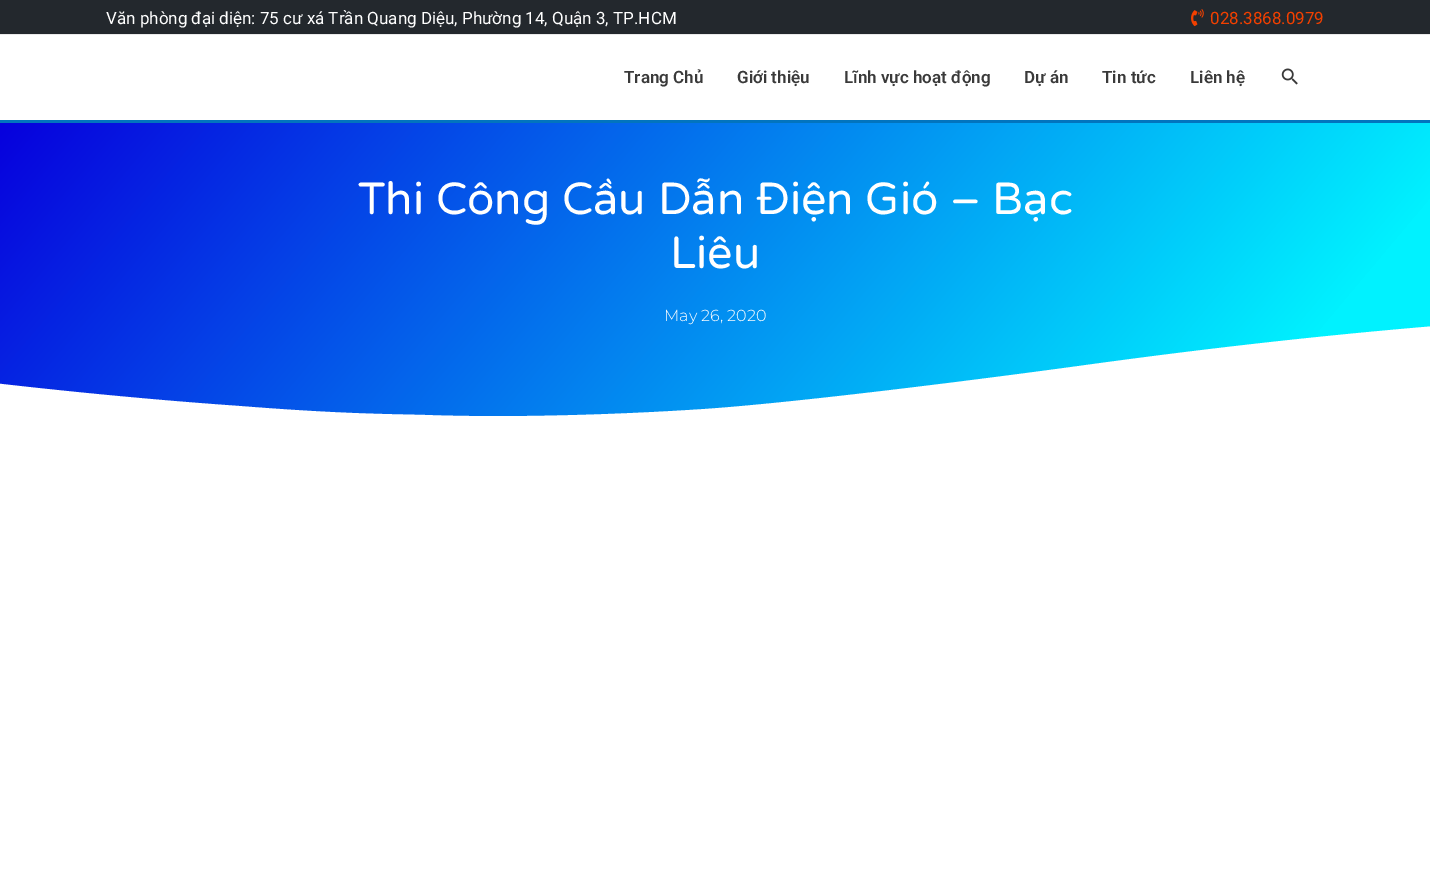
%!PS-Adobe-3.0
%%BoundingBox: 0 0 1430 883
%%LanguageLevel: 3
%%Pages: 1
%%EndComments
%%BeginProlog
/m { moveto } bind def
/l { lineto } bind def
/c { curveto } bind def
/h { closepath } bind def
/f { fill } bind def
/q { gsave } bind def
/Q { grestore } bind def
/fn { [ exch dup neg 0 0 3 -1 roll 0 0 ] selectfont } def
/tx { moveto show } def
/bx { rectfill } def
/im { 5 dict begin { /h /w /y /x /name } { exch def } forall
  gsave x y translate w h scale
  w h 8 [w 0 0 h 0 0] name (r) file false 3 colorimage grestore end } def
%%EndProlog
%%BeginSetup
<< /PageSize [1430 883] >> setpagedevice
%%EndSetup
%%Page: 1 1
0 883 translate 1 -1 scale
4 setmiterlimit
1 setgray
0 0 1430 883 bx
0.137 0.157 0.176 setrgbcolor
0 0 1430 34 bx
0.918 setgray
0 34 1430 1 bx
/Roboto-Regular 17 fn
1 setgray
(Văn phòng đại diện: 75 cư xá Trần Quang Diệu, Phường 14, Quận 3, TP.HCM) 106 24 tx
(image0.raw) 1191 9 13 18 im
0.949 0.251 0 setrgbcolor
(028.3868.0979) 1210 24 tx
0.008 0.455 0.745 setrgbcolor
0 120 1430 3 bx
/Roboto-SemiBold 17 fn
0.227 setgray
(Trang Chủ) 624 83 tx
(Giới thiệu) 737 83 tx
(Lĩnh vực hoạt động) 844 83 tx
(Dự án) 1024 83 tx
(Tin tức) 1102 83 tx
(Liên hệ) 1190 83 tx
(image1.raw) 1281 68 17 17 im
q 0 123 m 1430 123 l 1430 417 l 0 417 l h clip newpath
<< /ShadingType 2 /ColorSpace /DeviceRGB /Coords [222 -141 1208 687] /Extend [true true] /Function << /FunctionType 3 /Domain [0 1] /Functions [<< /FunctionType 2 /Domain [0 1] /C0 [0.027 0 0.867] /C1 [0 0.949 1] /N 1 >> << /FunctionType 2 /Domain [0 1] /C0 [0 0.949 1] /C1 [0 0.949 1] /N 1 >>] /Bounds [0.89] /Encode [0 1 0 1] >> >> shfill Q
/VarelaRound-Regular 45 fn
1 setgray
(Thi Công Cầu Dẫn Điện Gió – Bạc) 358 214 tx
(Liêu) 670 268 tx
/Montserrat-Light 16 fn
(May 26, 2020) 664 321 tx
425 415 m 509 418 616 415 705 409 c 793 403 969 381 1079 366 c 1361 327 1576 313 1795 306 c 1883 304 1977 302 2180 309 c 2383 317 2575 340 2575 340 c 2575 423 l -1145 423 l -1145 387 l -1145 387 -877 348 -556 350 c -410 351 -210 358 -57 377 c 22 387 137 399 239 406 c 340 414 386 414 425 415 c h f
showpage
%%EOF
